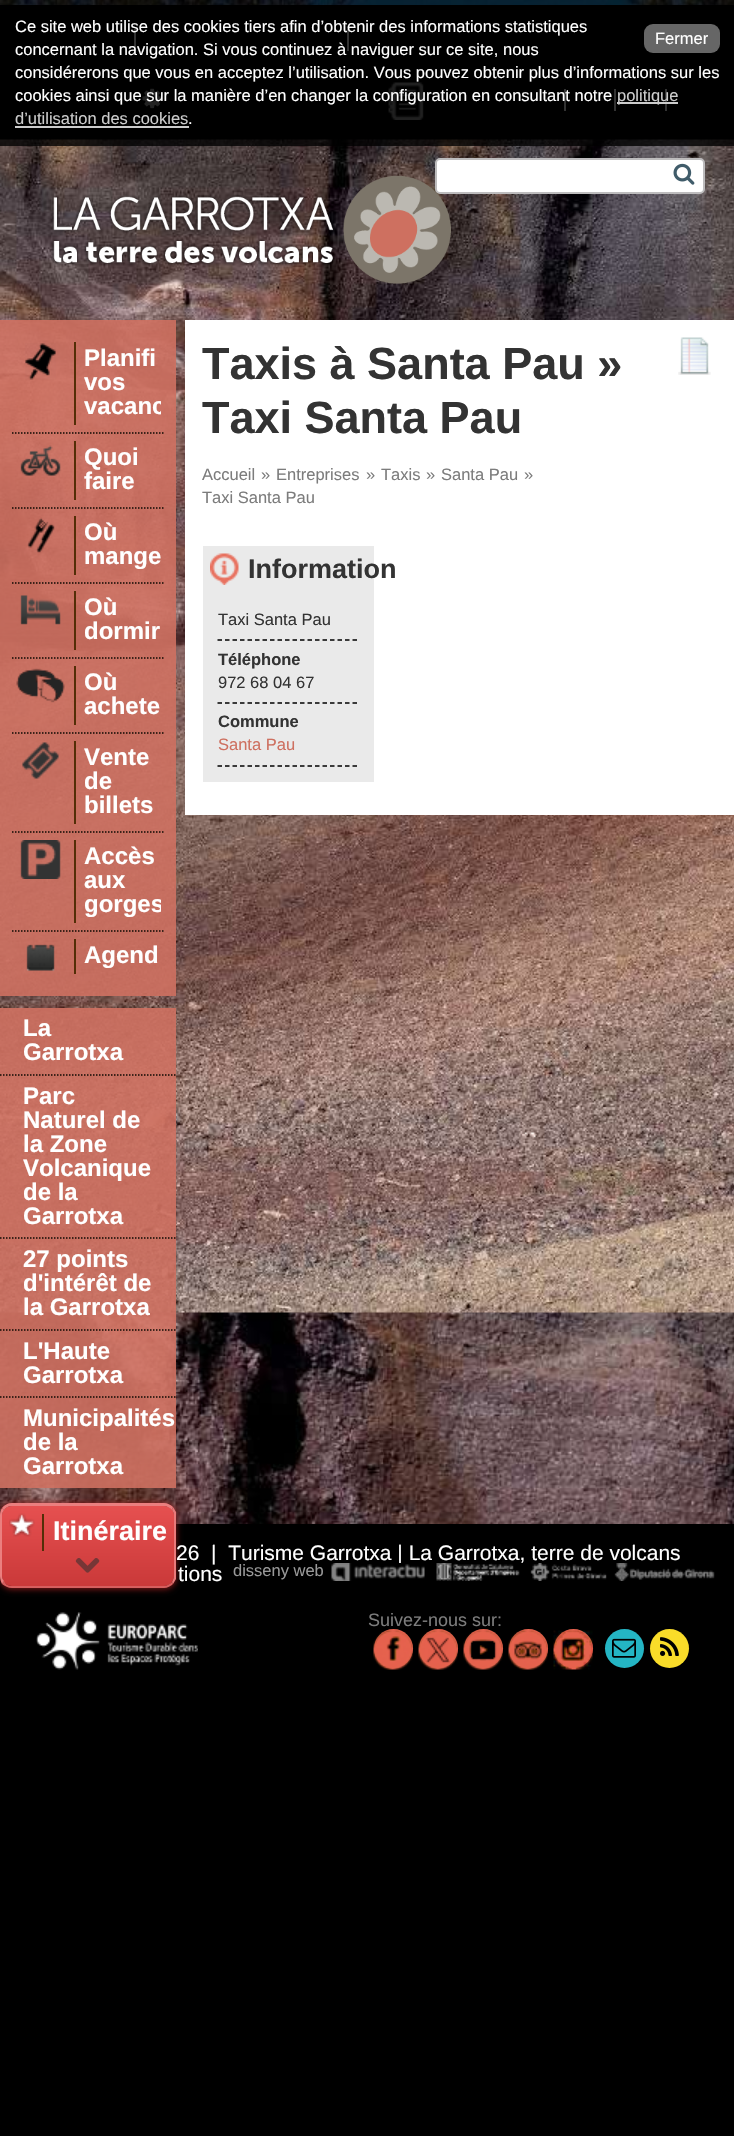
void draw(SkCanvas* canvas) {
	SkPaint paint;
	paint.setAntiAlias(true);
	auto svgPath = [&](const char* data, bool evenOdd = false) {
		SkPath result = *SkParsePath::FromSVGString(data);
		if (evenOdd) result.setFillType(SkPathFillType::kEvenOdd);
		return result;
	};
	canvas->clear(0xff000000);
	canvas->drawImageRect(SkImages::DeferredFromEncodedData(SkData::MakeFromFileName("img1.png")), SkRect::MakeXYWH(0, 0, 734, 1524), SkSamplingOptions());
	paint.setColor(0xff000000);
	canvas->drawRect(SkRect::MakeXYWH(0, 5, 734, 135), paint);
	paint.setColor(0xffffffff);
	canvas->drawRect(SkRect::MakeXYWH(134, 29, 2, 22), paint);
	canvas->drawRect(SkRect::MakeXYWH(347, 29, 2, 22), paint);
	canvas->drawImageRect(SkImages::DeferredFromEncodedData(SkData::MakeFromFileName("img2.png")), SkRect::MakeXYWH(142, 88, 20, 21), SkSamplingOptions());
	canvas->drawImageRect(SkImages::DeferredFromEncodedData(SkData::MakeFromFileName("img3.png")), SkRect::MakeXYWH(388, 82, 36, 38), SkSamplingOptions());
	canvas->drawRect(SkRect::MakeXYWH(564, 89, 2, 22), paint);
	canvas->drawRect(SkRect::MakeXYWH(614, 89, 2, 22), paint);
	canvas->drawRect(SkRect::MakeXYWH(665, 89, 2, 22), paint);
	canvas->drawImageRect(SkImages::DeferredFromEncodedData(SkData::MakeFromFileName("img4.png")), SkRect::MakeXYWH(0, 139, 734, 1174), SkSamplingOptions());
	paint.setColor(0xcc000000);
	canvas->drawRect(SkRect::MakeXYWH(0, 0, 734, 146), paint);
	SkFont f1(fontMgr->matchFamilyStyle("Liberation Sans", SkFontStyle::Normal()), 16.5);
	f1.setSubpixel(true);
	paint.setColor(0xffffffff);
	canvas->drawString("Ce site web utilise des cookies tiers afin d’obtenir des informations statistiques", 15, 32, f1, paint);
	paint.setColor(0xff666666);
	canvas->drawRoundRect(SkRect::MakeXYWH(644, 24, 76, 29), 9, 9, paint);
	paint.setColor(0xffffffff);
	canvas->drawString("Fermer", 655, 44, f1, paint);
	canvas->drawString("concernant la navigation. Si vous continuez à naviguer sur ce site, nous", 15, 55, f1, paint);
	canvas->drawString("considérerons que vous en acceptez l’utilisation. Vous pouvez obtenir plus d’informations sur les", 15, 78, f1, paint);
	canvas->drawString("cookies ainsi que sur la manière d’en changer la configuration en consultant notre", 15, 101, f1, paint);
	paint.setColor(0xffcccccc);
	canvas->drawRect(SkRect::MakeXYWH(617, 102, 61, 2), paint);
	canvas->drawString("politique", 617, 101, f1, paint);
	canvas->drawString("d’utilisation des cookies", 15, 124, f1, paint);
	canvas->drawRect(SkRect::MakeXYWH(15, 126, 174, 2), paint);
	paint.setColor(0xffffffff);
	canvas->drawString(".", 188, 124, f1, paint);
	canvas->drawImageRect(SkImages::DeferredFromEncodedData(SkData::MakeFromFileName("img5.png")), SkRect::MakeXYWH(50, 175, 401, 109), SkSamplingOptions());
	canvas->drawRoundRect(SkRect::MakeXYWH(436, 159, 268, 34), 4, 4, paint);
	paint.setStroke(true);
	paint.setStrokeWidth(2);
	paint.setColor(0xffbdbcbd);
	canvas->drawRoundRect(SkRect::MakeXYWH(436, 159, 268, 34), 4, 4, paint);
	canvas->drawImageRect(SkImages::DeferredFromEncodedData(SkData::MakeFromFileName("img6.png")), SkRect::MakeXYWH(673, 163, 22, 22), SkSamplingOptions());
	paint.setStroke(false);
	paint.setColor(0xe6ce7060);
	canvas->drawRect(SkRect::MakeXYWH(0, 320, 176, 676), paint);
	canvas->drawImageRect(SkImages::DeferredFromEncodedData(SkData::MakeFromFileName("img7.png")), SkRect::MakeXYWH(25, 343, 31, 37), SkSamplingOptions());
	paint.setColor(0xff532e07);
	canvas->drawRect(SkRect::MakeXYWH(74, 342, 2, 83), paint);
	SkFont f2(fontMgr->matchFamilyStyle("Liberation Sans", SkFontStyle::Bold()), 24);
	f2.setSubpixel(true);
	paint.setColor(0xffffffff);
	canvas->drawString("Planifi", 84, 366, f2, paint);
	canvas->drawString("vos", 84, 390, f2, paint);
	canvas->save();
	canvas->clipRect(SkRect::MakeXYWH(75, 342, 86, 83));
	canvas->drawString("vacanc", 84, 414, f2, paint);
	canvas->restore();
	paint.setStroke(true);
	paint.setStrokeWidth(1.5);
	paint.setColor(0xff0e0801);
	paint.setPathEffect(SkDashPathEffect::Make({{1.5f, 1.5f}}, 0));
	canvas->drawPath(svgPath("M12 433H163.5"), paint);
	paint.setPathEffect(nullptr);
	canvas->drawImageRect(SkImages::DeferredFromEncodedData(SkData::MakeFromFileName("img8.png")), SkRect::MakeXYWH(20, 445, 41, 31), SkSamplingOptions());
	paint.setStroke(false);
	paint.setColor(0xff532e07);
	canvas->drawRect(SkRect::MakeXYWH(74, 441, 2, 59), paint);
	paint.setColor(0xffffffff);
	canvas->drawString("Quoi", 84, 465, f2, paint);
	canvas->drawString("faire", 84, 489, f2, paint);
	paint.setStroke(true);
	paint.setColor(0xff0e0801);
	paint.setPathEffect(SkDashPathEffect::Make({{1.5f, 1.5f}}, 0));
	canvas->drawPath(svgPath("M12 508H163.5"), paint);
	paint.setPathEffect(nullptr);
	canvas->drawImageRect(SkImages::DeferredFromEncodedData(SkData::MakeFromFileName("img9.png")), SkRect::MakeXYWH(27, 517, 28, 36), SkSamplingOptions());
	paint.setStroke(false);
	paint.setColor(0xff532e07);
	canvas->drawRect(SkRect::MakeXYWH(74, 516, 2, 59), paint);
	paint.setColor(0xffffffff);
	canvas->drawString("Où", 84, 540, f2, paint);
	canvas->drawString("mange", 84, 564, f2, paint);
	paint.setStroke(true);
	paint.setColor(0xff0e0801);
	paint.setPathEffect(SkDashPathEffect::Make({{1.5f, 1.5f}}, 0));
	canvas->drawPath(svgPath("M12 583H163.5"), paint);
	paint.setPathEffect(nullptr);
	canvas->drawImageRect(SkImages::DeferredFromEncodedData(SkData::MakeFromFileName("img10.png")), SkRect::MakeXYWH(20, 595, 41, 30), SkSamplingOptions());
	paint.setStroke(false);
	paint.setColor(0xff532e07);
	canvas->drawRect(SkRect::MakeXYWH(74, 591, 2, 59), paint);
	paint.setColor(0xffffffff);
	canvas->drawString("Où", 84, 615, f2, paint);
	canvas->drawString("dormir", 84, 639, f2, paint);
	paint.setStroke(true);
	paint.setColor(0xff0e0801);
	paint.setPathEffect(SkDashPathEffect::Make({{1.5f, 1.5f}}, 0));
	canvas->drawPath(svgPath("M12 658H163.5"), paint);
	paint.setPathEffect(nullptr);
	canvas->drawImageRect(SkImages::DeferredFromEncodedData(SkData::MakeFromFileName("img11.png")), SkRect::MakeXYWH(16, 668, 49, 35), SkSamplingOptions());
	paint.setStroke(false);
	paint.setColor(0xff532e07);
	canvas->drawRect(SkRect::MakeXYWH(74, 666, 2, 59), paint);
	paint.setColor(0xffffffff);
	canvas->drawString("Où", 84, 690, f2, paint);
	canvas->drawString("achete", 84, 714, f2, paint);
	paint.setStroke(true);
	paint.setColor(0xff0e0801);
	paint.setPathEffect(SkDashPathEffect::Make({{1.5f, 1.5f}}, 0));
	canvas->drawPath(svgPath("M12 733H163.5"), paint);
	paint.setPathEffect(nullptr);
	canvas->drawImageRect(SkImages::DeferredFromEncodedData(SkData::MakeFromFileName("img12.png")), SkRect::MakeXYWH(22, 742, 37, 37), SkSamplingOptions());
	paint.setStroke(false);
	paint.setColor(0xff532e07);
	canvas->drawRect(SkRect::MakeXYWH(74, 741, 2, 83), paint);
	paint.setColor(0xffffffff);
	canvas->drawString("Vente", 84, 765, f2, paint);
	canvas->drawString("de", 84, 789, f2, paint);
	canvas->drawString("billets", 84, 813, f2, paint);
	paint.setStroke(true);
	paint.setColor(0xff0e0801);
	paint.setPathEffect(SkDashPathEffect::Make({{1.5f, 1.5f}}, 0));
	canvas->drawPath(svgPath("M12 832H163.5"), paint);
	paint.setPathEffect(nullptr);
	canvas->drawImageRect(SkImages::DeferredFromEncodedData(SkData::MakeFromFileName("img13.png")), SkRect::MakeXYWH(20, 840, 41, 39), SkSamplingOptions());
	paint.setStroke(false);
	paint.setColor(0xff532e07);
	canvas->drawRect(SkRect::MakeXYWH(74, 840, 2, 83), paint);
	paint.setColor(0xffffffff);
	canvas->drawString("Accès", 84, 864, f2, paint);
	canvas->drawString("aux", 84, 888, f2, paint);
	canvas->save();
	canvas->clipRect(SkRect::MakeXYWH(75, 840, 86, 83));
	canvas->drawString("gorges", 84, 912, f2, paint);
	canvas->restore();
	paint.setStroke(true);
	paint.setColor(0xff0e0801);
	paint.setPathEffect(SkDashPathEffect::Make({{1.5f, 1.5f}}, 0));
	canvas->drawPath(svgPath("M12 931H163.5"), paint);
	paint.setPathEffect(nullptr);
	canvas->drawImageRect(SkImages::DeferredFromEncodedData(SkData::MakeFromFileName("img14.png")), SkRect::MakeXYWH(26, 944, 29, 27), SkSamplingOptions());
	paint.setStroke(false);
	paint.setColor(0xff532e07);
	canvas->drawRect(SkRect::MakeXYWH(74, 939, 2, 35), paint);
	paint.setColor(0xffffffff);
	canvas->drawString("Agend", 84, 963, f2, paint);
	paint.setColor(0xe6ce7060);
	canvas->drawRect(SkRect::MakeXYWH(0, 1008, 176, 480), paint);
	paint.setColor(0xffffffff);
	canvas->drawString("La", 23, 1036, f2, paint);
	canvas->drawString("Garrotxa", 23, 1060, f2, paint);
	paint.setStroke(true);
	paint.setColor(0xff0e0801);
	paint.setPathEffect(SkDashPathEffect::Make({{1.5f, 1.5f}}, 0));
	canvas->drawPath(svgPath("M0 1075H175.5"), paint);
	paint.setPathEffect(nullptr);
	paint.setStroke(false);
	paint.setColor(0xffffffff);
	canvas->drawString("Parc", 23, 1104, f2, paint);
	canvas->drawString("Naturel de", 23, 1128, f2, paint);
	canvas->drawString("la Zone", 23, 1152, f2, paint);
	canvas->drawString("Volcanique", 23, 1176, f2, paint);
	canvas->drawString("de la", 23, 1200, f2, paint);
	canvas->drawString("Garrotxa", 23, 1224, f2, paint);
	paint.setStroke(true);
	paint.setColor(0xff0e0801);
	paint.setPathEffect(SkDashPathEffect::Make({{1.5f, 1.5f}}, 0));
	canvas->drawPath(svgPath("M0 1238H175.5"), paint);
	paint.setPathEffect(nullptr);
	paint.setStroke(false);
	paint.setColor(0xffffffff);
	canvas->drawString("27 points", 23, 1267, f2, paint);
	canvas->drawString("d'intérêt de", 23, 1291, f2, paint);
	canvas->drawString("la Garrotxa", 23, 1315, f2, paint);
	paint.setStroke(true);
	paint.setColor(0xff0e0801);
	paint.setPathEffect(SkDashPathEffect::Make({{1.5f, 1.5f}}, 0));
	canvas->drawPath(svgPath("M0 1330H175.5"), paint);
	paint.setPathEffect(nullptr);
	paint.setStroke(false);
	paint.setColor(0xffffffff);
	canvas->drawString("L'Haute", 23, 1359, f2, paint);
	canvas->drawString("Garrotxa", 23, 1383, f2, paint);
	paint.setStroke(true);
	paint.setColor(0xff0e0801);
	paint.setPathEffect(SkDashPathEffect::Make({{1.5f, 1.5f}}, 0));
	canvas->drawPath(svgPath("M0 1397H175.5"), paint);
	paint.setPathEffect(nullptr);
	paint.setStroke(false);
	paint.setColor(0xffffffff);
	canvas->drawString("Municipalités", 23, 1426, f2, paint);
	canvas->drawString("de la", 23, 1450, f2, paint);
	canvas->drawString("Garrotxa", 23, 1474, f2, paint);
	paint.setColor(0xff8a1919);
	paint.setMaskFilter(SkMaskFilter::MakeBlur(kNormal_SkBlurStyle, 3));
	canvas->drawRoundRect(SkRect::MakeXYWH(0, 1503, 176, 86), 12, 12, paint);
	paint.setMaskFilter(nullptr);
	{
		const SkColor colors[] = {0xffe65050, 0xffca3939};
		const float stops[] = {0, 1};
		const SkPoint ends[] = {{88, 1506}, {88, 1586}};
		paint.setShader(SkGradientShader::MakeLinear(ends, colors, stops, 2, SkTileMode::kClamp));
		paint.setAlpha(255);
	}
	canvas->drawPath(svgPath("M12 1506H164C169 1506 174 1510 174 1515V1576C174 1581 169 1586 164 1586H12C6 1586 2 1581 2 1576V1515C2 1510 6 1506 12 1506Z"), paint);
	paint.setShader(nullptr);
	paint.setColor(0xffea7f7f);
	canvas->drawPath(svgPath("M12 1503C8 1503 4 1505 2 1508L4 1510C5 1508 8 1506 12 1506H164C167 1506 170 1508 172 1510L173 1507C171 1505 167 1503 164 1503Z"), paint);
	paint.setColor(0xffe97a7a);
	canvas->drawPath(svgPath("M176 1579L173 1584L172 1582C173 1580 174 1578 174 1576V1515C174 1513 173 1511 172 1510L173 1507L176 1512Z"), paint);
	paint.setColor(0xffd65e5e);
	canvas->drawPath(svgPath("M173 1584C171 1586 167 1588 164 1588H12C8 1588 5 1586 2 1584L4 1581C5 1584 8 1586 12 1586H164C167 1586 170 1584 172 1582Z"), paint);
	paint.setColor(0xffeb7f7f);
	canvas->drawPath(svgPath("M0 1515V1576C0 1579 1 1582 2 1584L4 1581C3 1580 2 1578 2 1576V1515C2 1513 3 1511 4 1510L2 1508C1 1510 0 1512 0 1515Z"), paint);
	canvas->drawImageRect(SkImages::DeferredFromEncodedData(SkData::MakeFromFileName("img15.png")), SkRect::MakeXYWH(9, 1513, 26, 24), SkSamplingOptions());
	paint.setColor(0xff532e07);
	canvas->drawRect(SkRect::MakeXYWH(42, 1514, 2, 37), paint);
	SkFont f3(fontMgr->matchFamilyStyle("Liberation Sans", SkFontStyle::Bold()), 27);
	f3.setSubpixel(true);
	paint.setColor(0xffffffff);
	canvas->drawString("Itinéraire", 53, 1540, f3, paint);
	canvas->drawImageRect(SkImages::DeferredFromEncodedData(SkData::MakeFromFileName("img16.png")), SkRect::MakeXYWH(75, 1558, 25, 15), SkSamplingOptions());
	canvas->drawRect(SkRect::MakeXYWH(185, 320, 549, 495), paint);
	SkFont f4(fontMgr->matchFamilyStyle("Liberation Sans", SkFontStyle::Bold()), 45);
	f4.setSubpixel(true);
	paint.setColor(0xff333333);
	canvas->drawString("Taxis à Santa Pau »", 202, 379, f4, paint);
	canvas->drawString("Taxi Santa Pau", 202, 433, f4, paint);
	canvas->drawImageRect(SkImages::DeferredFromEncodedData(SkData::MakeFromFileName("img17.png")), SkRect::MakeXYWH(678, 337, 33, 38), SkSamplingOptions());
	paint.setColor(0xff7c7c7c);
	canvas->drawString("Accueil", 202, 480, f1, paint);
	canvas->drawString("»", 261, 480, f1, paint);
	canvas->drawString("Entreprises", 276, 480, f1, paint);
	canvas->drawString("»", 366, 480, f1, paint);
	canvas->drawString("Taxis", 381, 480, f1, paint);
	canvas->drawString("»", 426, 480, f1, paint);
	canvas->drawString("Santa Pau", 441, 480, f1, paint);
	canvas->drawString("»", 524, 480, f1, paint);
	canvas->drawString("Taxi Santa Pau", 202, 503, f1, paint);
	paint.setColor(0xffeaeaea);
	canvas->drawRect(SkRect::MakeXYWH(203, 546, 171, 236), paint);
	canvas->drawImageRect(SkImages::DeferredFromEncodedData(SkData::MakeFromFileName("img18.png")), SkRect::MakeXYWH(210, 553, 29, 32), SkSamplingOptions());
	paint.setColor(0xff333333);
	canvas->drawString("Information", 248, 578, f3, paint);
	paint.setStroke(true);
	paint.setColor(0xff000000);
	paint.setPathEffect(SkDashPathEffect::Make({{4.5f, 3}}, 0));
	canvas->drawPath(svgPath("M217.5 640H357"), paint);
	paint.setPathEffect(nullptr);
	paint.setStroke(false);
	paint.setColor(0xff333333);
	canvas->drawString("Taxi Santa Pau", 218, 625, f1, paint);
	paint.setStroke(true);
	paint.setColor(0xff000000);
	paint.setPathEffect(SkDashPathEffect::Make({{4.5f, 3}}, 0));
	canvas->drawPath(svgPath("M217.5 703H357"), paint);
	paint.setPathEffect(nullptr);
	SkFont f5(fontMgr->matchFamilyStyle("Liberation Sans", SkFontStyle::Bold()), 16.5);
	f5.setSubpixel(true);
	paint.setStroke(false);
	paint.setColor(0xff333333);
	canvas->drawString("Téléphone", 218, 665, f5, paint);
	canvas->drawString("972 68 04 67", 218, 688, f1, paint);
	paint.setStroke(true);
	paint.setColor(0xff000000);
	paint.setPathEffect(SkDashPathEffect::Make({{4.5f, 3}}, 0));
	canvas->drawPath(svgPath("M217.5 766H357"), paint);
	paint.setPathEffect(nullptr);
	paint.setStroke(false);
	paint.setColor(0xff333333);
	canvas->drawString("Commune", 218, 727, f5, paint);
	paint.setColor(0xffce7060);
	canvas->drawString("Santa Pau", 218, 750, f1, paint);
	SkFont f6(fontMgr->matchFamilyStyle("Liberation Sans", SkFontStyle::Normal()), 21);
	f6.setSubpixel(true);
	paint.setColor(0xffffffff);
	canvas->drawString("26  |  Turisme Garrotxa | La Garrotxa, terre de volcans", 176, 1560, f6, paint);
	canvas->drawString("tions", 178, 1581, f6, paint);
	paint.setColor(0xff999999);
	canvas->drawString("disseny web", 233, 1576, f1, paint);
	canvas->drawImageRect(SkImages::DeferredFromEncodedData(SkData::MakeFromFileName("img19.png")), SkRect::MakeXYWH(331, 1563, 384, 18), SkSamplingOptions());
	canvas->drawImageRect(SkImages::DeferredFromEncodedData(SkData::MakeFromFileName("img20.png")), SkRect::MakeXYWH(36, 1612, 162, 58), SkSamplingOptions());
	SkFont f7(fontMgr->matchFamilyStyle("Liberation Sans", SkFontStyle::Normal()), 18);
	f7.setSubpixel(true);
	paint.setColor(0xff7c7c7c);
	canvas->drawString("Suivez-nous sur:", 368, 1626, f7, paint);
	paint.setColor(0xffe6624e);
	canvas->drawCircle(393.5, 1648.5, 19.5, paint);
	canvas->drawImageRect(SkImages::DeferredFromEncodedData(SkData::MakeFromFileName("img21.png")), SkRect::MakeXYWH(373, 1630, 40, 40), SkSamplingOptions());
	canvas->drawCircle(438.5, 1648.5, 19.5, paint);
	canvas->drawImageRect(SkImages::DeferredFromEncodedData(SkData::MakeFromFileName("img22.png")), SkRect::MakeXYWH(418, 1630, 40, 40), SkSamplingOptions());
	canvas->drawCircle(483.5, 1648.5, 19.5, paint);
	canvas->drawImageRect(SkImages::DeferredFromEncodedData(SkData::MakeFromFileName("img23.png")), SkRect::MakeXYWH(463, 1630, 40, 40), SkSamplingOptions());
	canvas->drawCircle(528.5, 1648.5, 19.5, paint);
	canvas->drawImageRect(SkImages::DeferredFromEncodedData(SkData::MakeFromFileName("img24.png")), SkRect::MakeXYWH(508, 1630, 40, 40), SkSamplingOptions());
	canvas->drawCircle(573.5, 1648.5, 19.5, paint);
	canvas->drawImageRect(SkImages::DeferredFromEncodedData(SkData::MakeFromFileName("img25.png")), SkRect::MakeXYWH(553, 1630, 40, 40), SkSamplingOptions());
	paint.setColor(0xff24b5c4);
	canvas->drawCircle(624.5, 1648.5, 19.5, paint);
	canvas->drawImageRect(SkImages::DeferredFromEncodedData(SkData::MakeFromFileName("img26.png")), SkRect::MakeXYWH(612, 1638, 24, 20), SkSamplingOptions());
	paint.setColor(0xfff9dc29);
	canvas->drawCircle(669.5, 1648.5, 19.5, paint);
	canvas->drawImageRect(SkImages::DeferredFromEncodedData(SkData::MakeFromFileName("img27.png")), SkRect::MakeXYWH(660, 1637, 19, 19), SkSamplingOptions());
}
